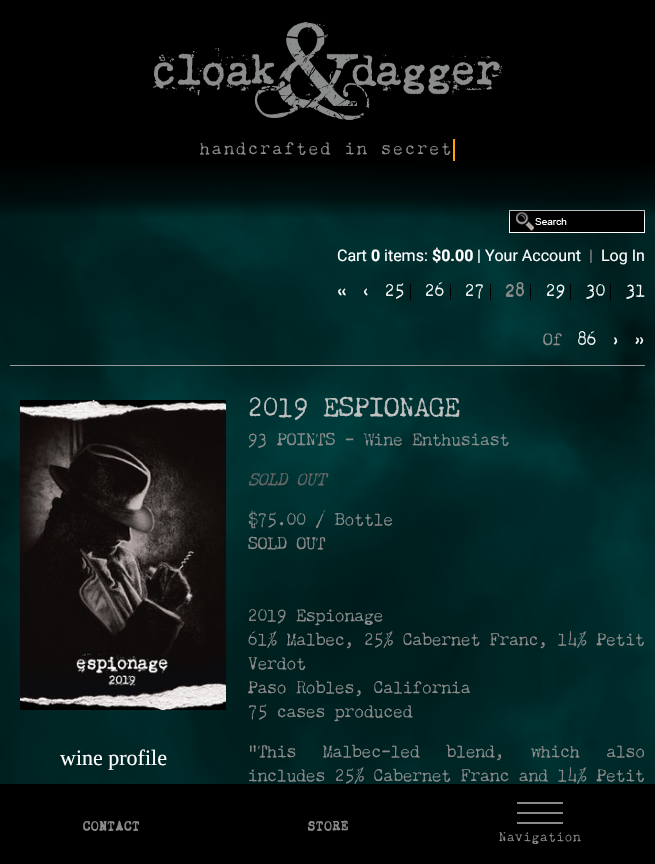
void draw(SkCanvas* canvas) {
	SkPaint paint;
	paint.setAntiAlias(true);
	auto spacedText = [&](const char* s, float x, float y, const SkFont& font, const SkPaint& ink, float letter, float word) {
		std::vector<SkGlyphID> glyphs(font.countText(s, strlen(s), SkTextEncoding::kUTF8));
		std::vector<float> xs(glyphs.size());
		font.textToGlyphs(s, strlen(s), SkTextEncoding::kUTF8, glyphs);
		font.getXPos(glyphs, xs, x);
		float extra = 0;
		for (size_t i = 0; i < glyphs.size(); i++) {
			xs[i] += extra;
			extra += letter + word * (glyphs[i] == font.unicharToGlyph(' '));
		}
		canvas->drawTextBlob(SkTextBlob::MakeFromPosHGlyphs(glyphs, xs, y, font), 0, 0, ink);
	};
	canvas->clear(0xffffffff);
	paint.setColor(0xff000000);
	canvas->drawRect(SkRect::MakeXYWH(0, 0, 655, 161), paint);
	canvas->drawImageRect(SkImages::DeferredFromEncodedData(SkData::MakeFromFileName("img1.png")), SkRect::MakeXYWH(153, 21, 350, 99), SkSamplingOptions());
	paint.setColor(0xffffa500);
	canvas->drawRect(SkRect::MakeXYWH(453, 139, 2, 22), paint);
	SkFont f1(fontMgr->matchFamilyStyle("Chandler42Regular", SkFontStyle::Normal()), 16);
	f1.setSubpixel(true);
	paint.setColor(0xff8a8a8a);
	spacedText("handcrafted in secret", 200, 154, f1, paint, 2.4, 0);
	canvas->drawImageRect(SkImages::DeferredFromEncodedData(SkData::MakeFromFileName("img2.png")), SkRect::MakeXYWH(0, 162, 655, 622), SkSamplingOptions());
	paint.setColor(0xff000000);
	canvas->drawRect(SkRect::MakeXYWH(510, 211, 134, 21), paint);
	canvas->drawImageRect(SkImages::DeferredFromEncodedData(SkData::MakeFromFileName("img3.png")), SkRect::MakeXYWH(516, 212, 51, 19), SkSamplingOptions());
	paint.setStroke(true);
	paint.setStrokeWidth(1);
	paint.setColor(0xffffffff);
	canvas->drawRect(SkRect::MakeXYWH(509.5, 210.5, 135, 22), paint);
	paint.setStroke(false);
	{
		const SkColor colors[] = {0xff000000, 0x99000000, 0x00000000};
		const float stops[] = {0, 0.6, 0.9};
		const SkPoint ends[] = {{328, 161}, {328, 225}};
		paint.setShader(SkGradientShader::MakeLinear(ends, colors, stops, 3, SkTileMode::kClamp));
		paint.setAlpha(255);
	}
	canvas->drawRect(SkRect::MakeXYWH(0, 161, 655, 57), paint);
	SkFont f2(fontMgr->matchFamilyStyle("Roboto", SkFontStyle::Normal()), 16);
	f2.setSubpixel(true);
	paint.setShader(nullptr);
	paint.setColor(0xffffffff);
	canvas->drawString("Cart", 337, 261, f2, paint);
	SkFont f3(fontMgr->matchFamilyStyle("Roboto", SkFontStyle::Bold()), 16);
	f3.setSubpixel(true);
	canvas->drawString("0", 371, 261, f3, paint);
	canvas->drawString("items:", 384, 261, f2, paint);
	canvas->drawString("$0.00", 432, 261, f3, paint);
	canvas->drawString("| Your Account", 477, 261, f2, paint);
	paint.setColor(0xff8a8a8a);
	canvas->drawString("|", 589, 261, f2, paint);
	paint.setColor(0xffffffff);
	canvas->drawString("Log In", 601, 261, f2, paint);
	paint.setColor(0xff999999);
	canvas->drawRect(SkRect::MakeXYWH(10, 365, 635, 1), paint);
	paint.setColor(0xffffffff);
	canvas->drawString("«", 337, 296, f1, paint);
	canvas->drawString("‹", 361, 296, f1, paint);
	canvas->drawString("25", 385, 296, f1, paint);
	paint.setColor(0xff000000);
	canvas->drawRect(SkRect::MakeXYWH(410, 284, 1, 16), paint);
	paint.setColor(0xffffffff);
	canvas->drawString("26", 425, 296, f1, paint);
	paint.setColor(0xff000000);
	canvas->drawRect(SkRect::MakeXYWH(450, 284, 1, 16), paint);
	paint.setColor(0xffffffff);
	canvas->drawString("27", 465, 296, f1, paint);
	paint.setColor(0xff000000);
	canvas->drawRect(SkRect::MakeXYWH(490, 284, 1, 16), paint);
	SkFont f4(fontMgr->matchFamilyStyle("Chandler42", SkFontStyle::Normal()), 16);
	f4.setSubpixel(true);
	paint.setColor(0xff8a8a8a);
	canvas->drawString("28", 505, 296, f4, paint);
	paint.setColor(0xff000000);
	canvas->drawRect(SkRect::MakeXYWH(530, 284, 1, 16), paint);
	paint.setColor(0xffffffff);
	canvas->drawString("29", 546, 296, f1, paint);
	paint.setColor(0xff000000);
	canvas->drawRect(SkRect::MakeXYWH(570, 284, 1, 16), paint);
	paint.setColor(0xffffffff);
	canvas->drawString("30", 586, 296, f1, paint);
	paint.setColor(0xff000000);
	canvas->drawRect(SkRect::MakeXYWH(610, 284, 1, 16), paint);
	paint.setColor(0xffffffff);
	canvas->drawString("31", 626, 296, f1, paint);
	paint.setColor(0xff8a8a8a);
	canvas->drawString("Of", 543, 345, f1, paint);
	paint.setColor(0xffffffff);
	canvas->drawString("86", 577, 345, f1, paint);
	canvas->drawString("›", 611, 345, f1, paint);
	canvas->drawString("»", 635, 345, f1, paint);
	canvas->drawImageRect(SkImages::DeferredFromEncodedData(SkData::MakeFromFileName("img4.png")), SkRect::MakeXYWH(20, 400, 206, 310), SkSamplingOptions());
	SkFont f5(fontMgr->matchFamilyStyle("Liberation Serif", SkFontStyle::Normal()), 22);
	f5.setSubpixel(true);
	canvas->drawString("wine profile", 60, 765, f5, paint);
	SkFont f6(fontMgr->matchFamilyStyle("Chandler42Regular", SkFontStyle::Normal()), 25);
	f6.setSubpixel(true);
	paint.setColor(0xffc0c0c0);
	canvas->drawString("2019 ESPIONAGE", 248, 416, f6, paint);
	paint.setColor(0xff8a8a8a);
	canvas->drawString("93 POINTS - Wine Enthusiast", 248, 445, f1, paint);
	SkFont f7(fontMgr->matchFamilyStyle("Chandler42", SkFontStyle(500, SkFontStyle::kNormal_Width, SkFontStyle::kItalic_Slant)), 16);
	f7.setSubpixel(true);
	paint.setColor(0xff666666);
	canvas->drawString("SOLD OUT", 248, 485, f7, paint);
	paint.setColor(0xff8a8a8a);
	canvas->drawString("$75.00 / Bottle", 248, 525, f1, paint);
	canvas->drawString("SOLD OUT", 248, 549, f1, paint);
	canvas->drawString("2019 Espionage", 248, 621, f1, paint);
	canvas->drawString("61% Malbec, 25% Cabernet Franc, 14% Petit", 248, 645, f1, paint);
	canvas->drawString("Verdot", 248, 669, f1, paint);
	canvas->drawString("Paso Robles, California", 248, 693, f1, paint);
	canvas->drawString("75 cases produced", 248, 717, f1, paint);
	spacedText("\"This Malbec-led blend, which also", 248, 757, f1, paint, 0, 17);
	canvas->drawString("includes 25% Cabernet Franc and 14% Petit", 248, 781, f1, paint);
	paint.setColor(0xff000000);
	canvas->drawRect(SkRect::MakeXYWH(0, 784, 655, 80), paint);
	SkFont f8(fontMgr->matchFamilyStyle("Chandler42", SkFontStyle::Normal()), 12);
	f8.setSubpixel(true);
	paint.setColor(0xff8a8a8a);
	spacedText("CONTACT", 83, 830, f8, paint, 1, 0);
	spacedText("STORE", 308, 830, f8, paint, 1, 0);
	canvas->drawRect(SkRect::MakeXYWH(517, 802, 46, 2), paint);
	canvas->drawRect(SkRect::MakeXYWH(517, 812, 46, 2), paint);
	canvas->drawRect(SkRect::MakeXYWH(517, 822, 46, 2), paint);
	SkFont f9(fontMgr->matchFamilyStyle("Chandler42Regular", SkFontStyle::Normal()), 12);
	f9.setSubpixel(true);
	spacedText("Navigation", 499, 841, f9, paint, 1, 0);
}
